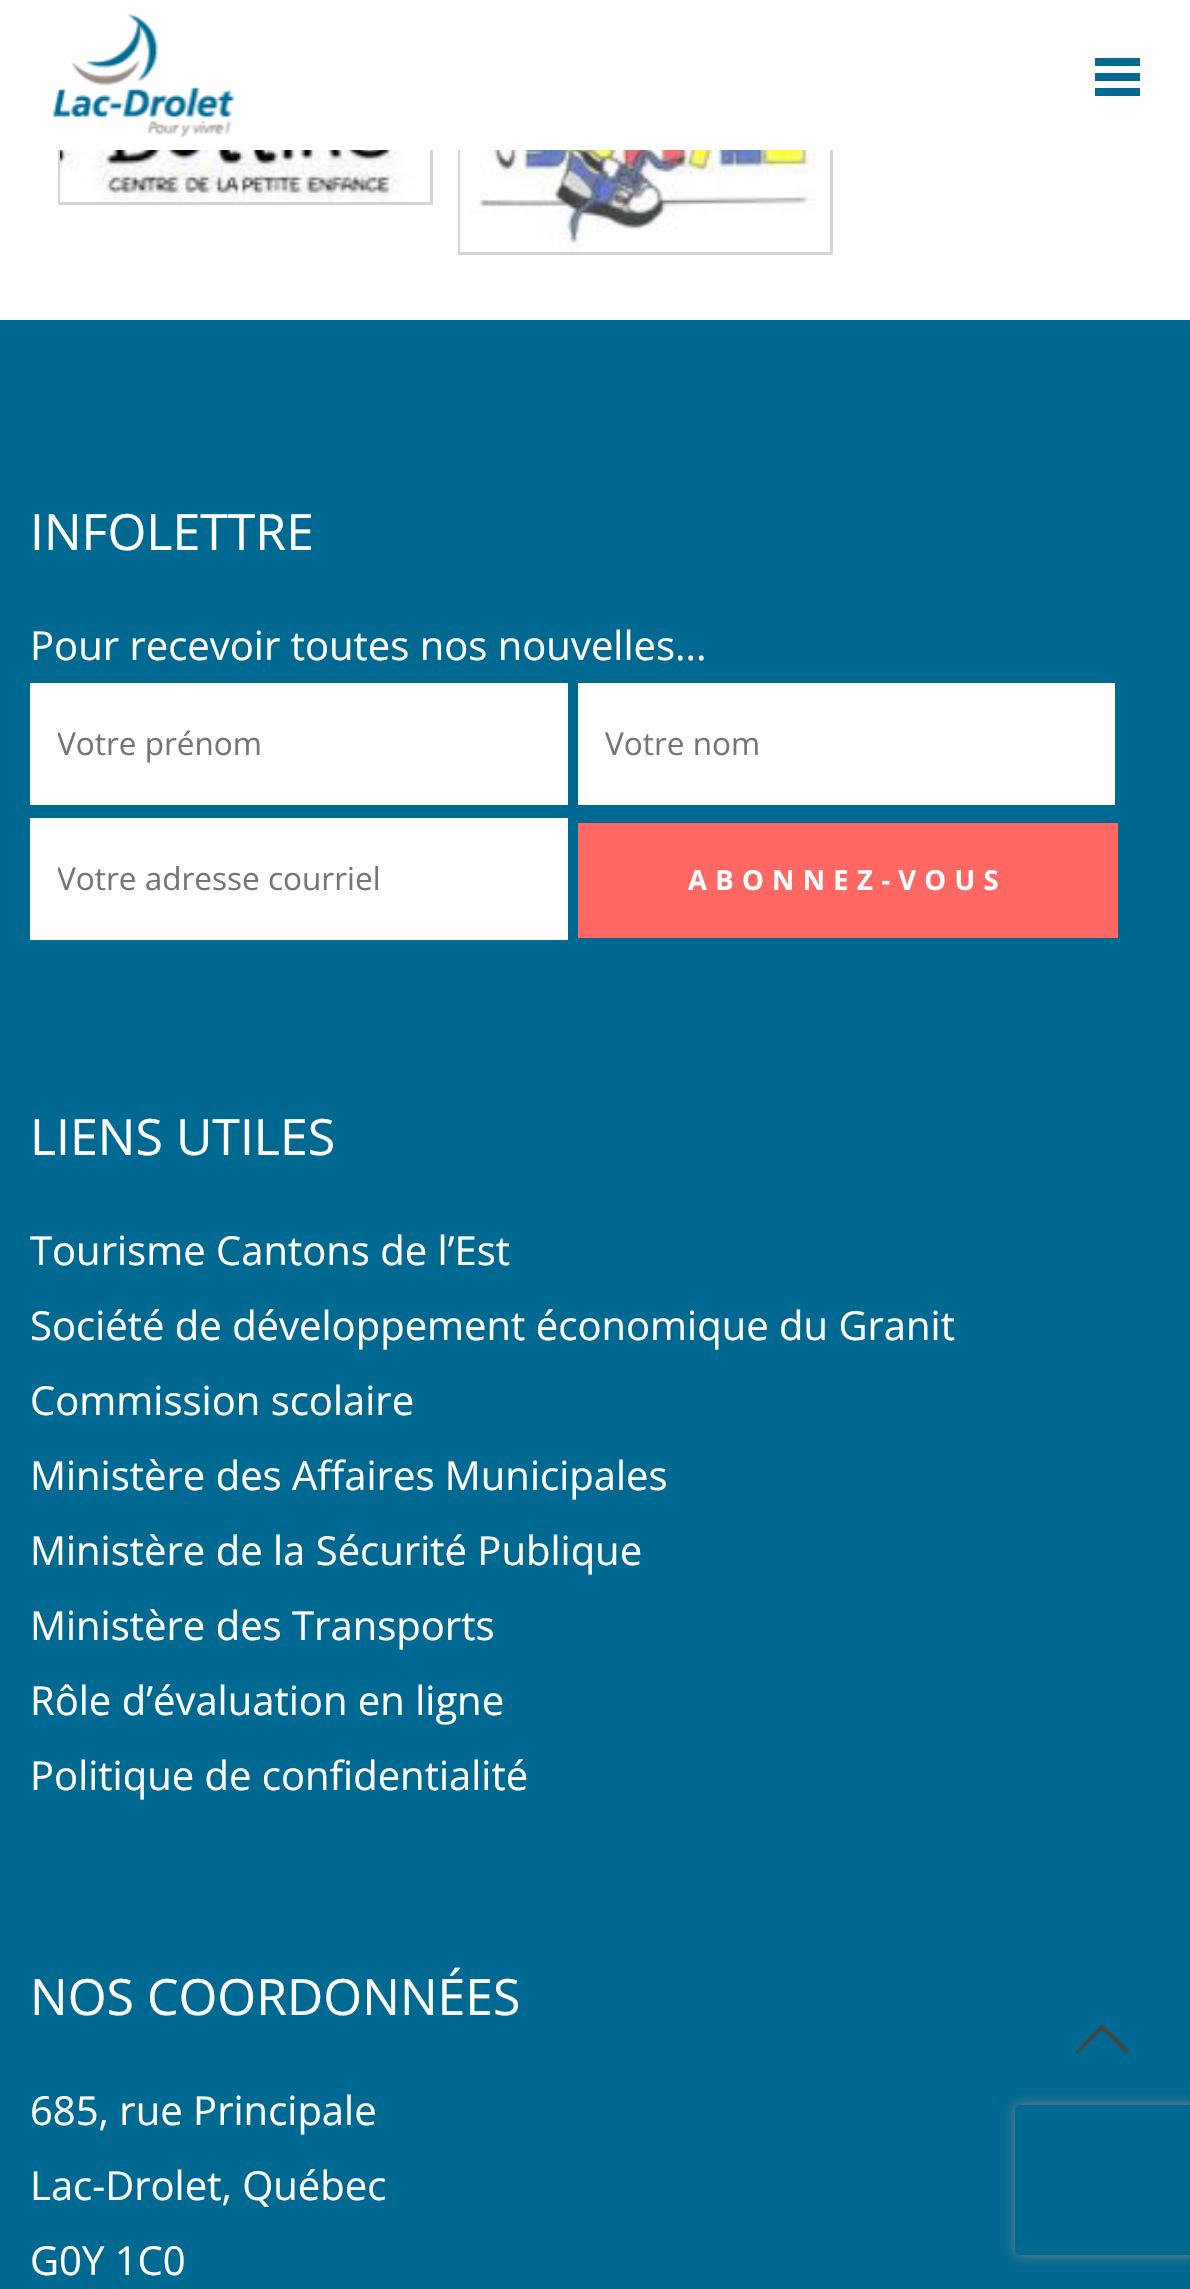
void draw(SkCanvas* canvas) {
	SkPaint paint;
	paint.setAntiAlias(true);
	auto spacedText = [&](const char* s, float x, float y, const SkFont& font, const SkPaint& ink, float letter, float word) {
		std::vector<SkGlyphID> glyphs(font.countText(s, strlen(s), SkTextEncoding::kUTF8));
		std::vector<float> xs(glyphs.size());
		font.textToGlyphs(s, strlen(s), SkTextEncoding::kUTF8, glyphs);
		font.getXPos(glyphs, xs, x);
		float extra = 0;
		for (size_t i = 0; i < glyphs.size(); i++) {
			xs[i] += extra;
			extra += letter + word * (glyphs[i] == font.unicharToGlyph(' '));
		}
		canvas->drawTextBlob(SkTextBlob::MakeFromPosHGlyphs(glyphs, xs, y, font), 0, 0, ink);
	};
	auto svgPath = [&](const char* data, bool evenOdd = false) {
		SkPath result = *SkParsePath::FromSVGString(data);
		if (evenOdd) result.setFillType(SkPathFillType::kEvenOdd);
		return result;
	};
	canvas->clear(0xffffffff);
	paint.setStroke(true);
	paint.setStrokeWidth(3);
	paint.setColor(0xffd4d4d4);
	canvas->drawRect(SkRect::MakeXYWH(59.5, -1.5, 372, 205), paint);
	canvas->drawImageRect(SkImages::DeferredFromEncodedData(SkData::MakeFromFileName("img1.png")), SkRect::MakeXYWH(60, 150, 370, 52), SkSamplingOptions());
	canvas->drawRect(SkRect::MakeXYWH(459.5, -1.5, 372, 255), paint);
	canvas->drawImageRect(SkImages::DeferredFromEncodedData(SkData::MakeFromFileName("img2.png")), SkRect::MakeXYWH(460, 150, 356, 102), SkSamplingOptions());
	paint.setStroke(false);
	paint.setColor(0xffffffff);
	canvas->drawRect(SkRect::MakeXYWH(58, 0, 775, 150), paint);
	canvas->drawImageRect(SkImages::DeferredFromEncodedData(SkData::MakeFromFileName("img3.png")), SkRect::MakeXYWH(53, 13, 183, 125), SkSamplingOptions());
	paint.setColor(0xff026991);
	canvas->drawRect(SkRect::MakeXYWH(1095, 58, 45, 8), paint);
	canvas->drawRect(SkRect::MakeXYWH(1095, 73, 45, 8), paint);
	canvas->drawRect(SkRect::MakeXYWH(1095, 88, 45, 8), paint);
	paint.setColor(0xff006991);
	canvas->drawRect(SkRect::MakeXYWH(0, 320, 1190, 1969), paint);
	SkFont f1(fontMgr->matchFamilyStyle("Open Sans", SkFontStyle::Normal()), 50);
	f1.setSubpixel(true);
	paint.setColor(0xffffffff);
	canvas->drawString("INFOLETTRE", 30, 550, f1, paint);
	SkFont f2(fontMgr->matchFamilyStyle("Open Sans", SkFontStyle::Normal()), 40);
	f2.setSubpixel(true);
	canvas->drawString("Pour recevoir toutes nos nouvelles...", 30, 660, f2, paint);
	canvas->drawRect(SkRect::MakeXYWH(30, 683, 538, 122), paint);
	canvas->save();
	canvas->clipRect(SkRect::MakeXYWH(58, 723, 482, 42));
	SkFont f3(fontMgr->matchFamilyStyle("Open Sans", SkFontStyle::Normal()), 31.5);
	f3.setSubpixel(true);
	paint.setColor(0xff757575);
	canvas->drawString("Votre prénom", 57, 755, f3, paint);
	canvas->restore();
	paint.setColor(0xffffffff);
	canvas->drawRect(SkRect::MakeXYWH(578, 683, 537, 122), paint);
	paint.setColor(0xff757575);
	canvas->drawString("Votre nom", 605, 755, f3, paint);
	paint.setColor(0xffffffff);
	canvas->drawRect(SkRect::MakeXYWH(30, 818, 538, 122), paint);
	canvas->save();
	canvas->clipRect(SkRect::MakeXYWH(58, 858, 482, 42));
	paint.setColor(0xff757575);
	canvas->drawString("Votre adresse courriel", 57, 890, f3, paint);
	canvas->restore();
	paint.setColor(0xffff6863);
	canvas->drawRect(SkRect::MakeXYWH(578, 823, 540, 115), paint);
	SkFont f4(fontMgr->matchFamilyStyle("Open Sans", SkFontStyle::Bold()), 27.5);
	f4.setSubpixel(true);
	paint.setColor(0xffffffff);
	spacedText("ABONNEZ-VOUS", 688, 890, f4, paint, 8.25, 0);
	canvas->drawString("LIENS UTILES", 30, 1155, f1, paint);
	canvas->drawString("Tourisme Cantons de l’Est", 30, 1265, f2, paint);
	canvas->drawString("Société de développement économique du Granit", 30, 1340, f2, paint);
	canvas->drawString("Commission scolaire", 30, 1415, f2, paint);
	canvas->drawString("Ministère des Affaires Municipales", 30, 1490, f2, paint);
	canvas->drawString("Ministère de la Sécurité Publique", 30, 1565, f2, paint);
	canvas->drawString("Ministère des Transports", 30, 1640, f2, paint);
	canvas->drawString("Rôle d’évaluation en ligne", 30, 1715, f2, paint);
	canvas->drawString("Politique de confidentialité", 30, 1790, f2, paint);
	canvas->drawString("NOS COORDONNÉES", 30, 2015, f1, paint);
	canvas->drawString("685, rue Principale", 30, 2125, f2, paint);
	canvas->drawString("Lac-Drolet, Québec", 30, 2200, f2, paint);
	canvas->drawString("G0Y 1C0", 30, 2275, f2, paint);
	paint.setColor(0xff454545);
	canvas->drawPath(svgPath("M1129 2051C1129 2053 1127 2054 1126 2053L1102 2030L1078 2053C1077 2053 1076 2052 1076 2051L1102 2024C1106 2028 1129 2049 1129 2051Z"), paint);
	canvas->save();
	canvas->clipPath(svgPath("M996 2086H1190V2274H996ZM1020 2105H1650C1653 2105 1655 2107 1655 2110V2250C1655 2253 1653 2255 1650 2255H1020C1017 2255 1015 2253 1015 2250V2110C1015 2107 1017 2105 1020 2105Z", true), true);
	paint.setColor(0xff808080);
	paint.setMaskFilter(SkMaskFilter::MakeBlur(kNormal_SkBlurStyle, 6));
	canvas->drawRoundRect(SkRect::MakeXYWH(1015, 2105, 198, 150), 5, 5, paint);
	paint.setMaskFilter(nullptr);
	canvas->restore();
}
